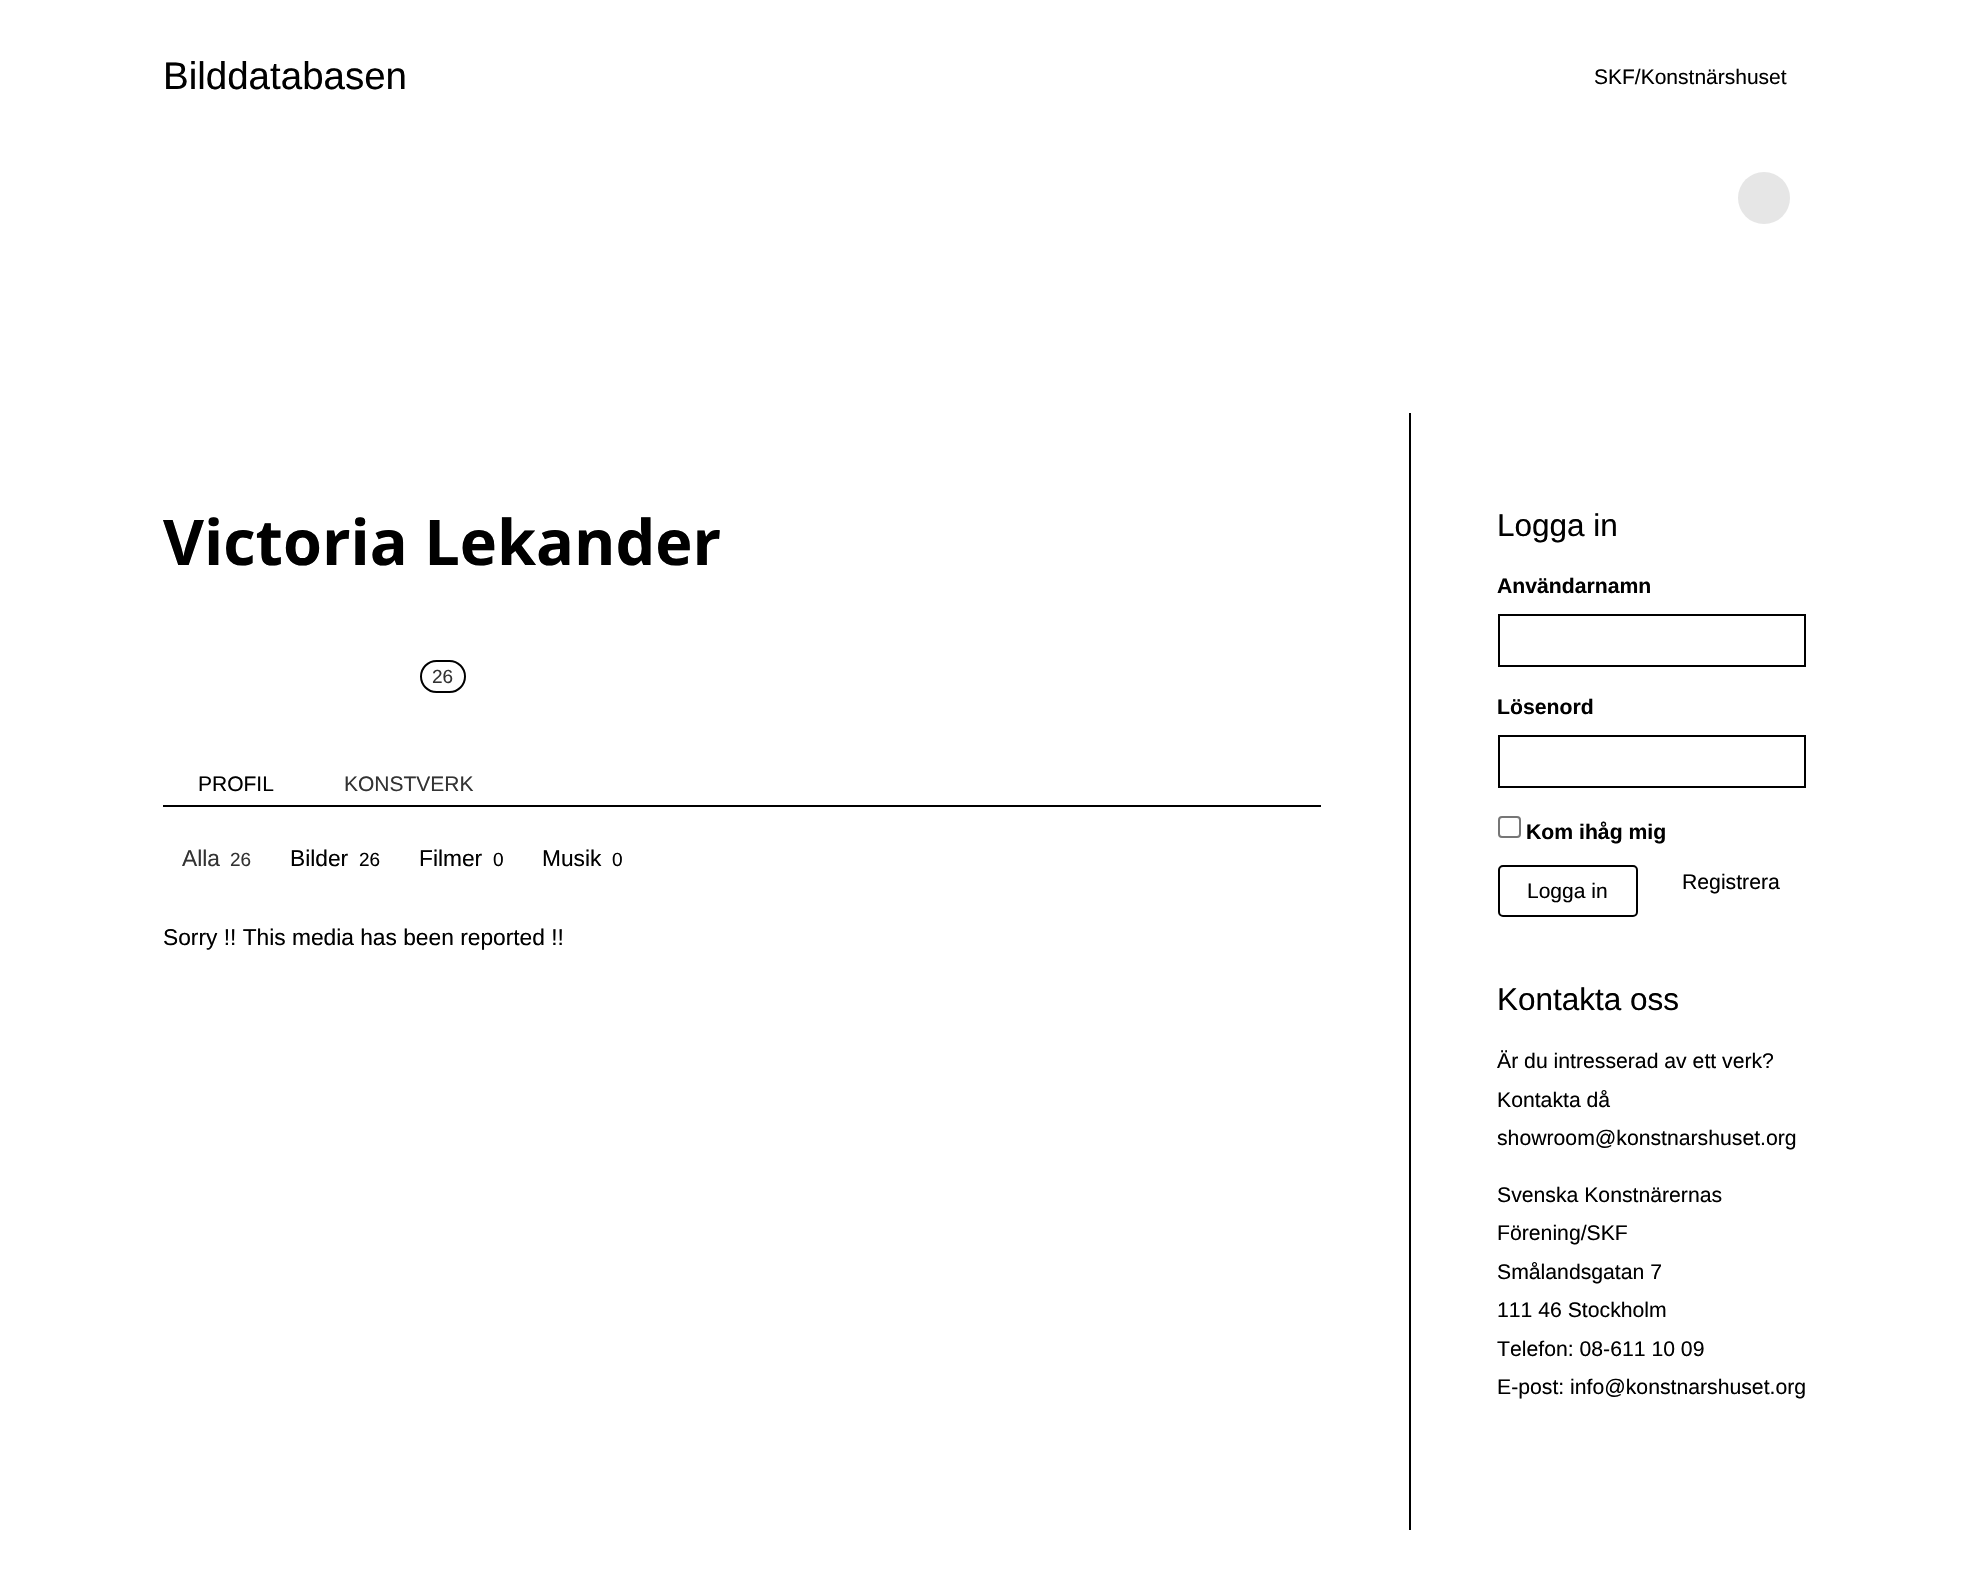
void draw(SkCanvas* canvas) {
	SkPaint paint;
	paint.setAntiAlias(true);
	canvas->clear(0xffffffff);
	SkFont f1(fontMgr->matchFamilyStyle("Liberation Sans", SkFontStyle::Normal()), 38.5);
	f1.setSubpixel(true);
	paint.setColor(0xff000000);
	canvas->drawString("Bilddatabasen", 163, 89, f1, paint);
	SkFont f2(fontMgr->matchFamilyStyle("Liberation Sans", SkFontStyle::Normal()), 21);
	f2.setSubpixel(true);
	canvas->drawString("SKF/Konstnärshuset", 1594, 84, f2, paint);
	paint.setColor(0xffe6e6e6);
	canvas->drawCircle(1764, 198, 26, paint);
	paint.setColor(0xff000000);
	canvas->drawRect(SkRect::MakeXYWH(1409, 413, 2, 1117), paint);
	SkFont f3(fontMgr->matchFamilyStyle("Open Sans", SkFontStyle::Bold()), 63);
	f3.setSubpixel(true);
	canvas->drawString("Victoria Lekander", 163, 565, f3, paint);
	canvas->drawRect(SkRect::MakeXYWH(163, 805, 1158, 2), paint);
	canvas->drawString("PROFIL", 198, 791, f2, paint);
	paint.setStroke(true);
	paint.setStrokeWidth(2);
	canvas->drawRoundRect(SkRect::MakeXYWH(421, 661, 44, 31), 15.5, 15.5, paint);
	SkFont f4(fontMgr->matchFamilyStyle("Liberation Sans", SkFontStyle::Normal()), 19);
	f4.setSubpixel(true);
	paint.setStroke(false);
	paint.setColor(0xff333333);
	canvas->drawString("26", 432, 683, f4, paint);
	canvas->drawString("KONSTVERK", 344, 791, f2, paint);
	SkFont f5(fontMgr->matchFamilyStyle("Liberation Sans", SkFontStyle::Normal()), 22.75);
	f5.setSubpixel(true);
	canvas->drawString("Alla", 182, 866, f5, paint);
	canvas->drawString("26", 230, 866, f4, paint);
	paint.setColor(0xff000000);
	canvas->drawString("Bilder", 290, 866, f5, paint);
	canvas->drawString("26", 359, 866, f4, paint);
	canvas->drawString("Filmer", 419, 866, f5, paint);
	canvas->drawString("0", 493, 866, f4, paint);
	canvas->drawString("Musik", 542, 866, f5, paint);
	canvas->drawString("0", 612, 866, f4, paint);
	canvas->drawString("Sorry !! This media has been reported !!", 163, 945, f5, paint);
	SkFont f6(fontMgr->matchFamilyStyle("Liberation Sans", SkFontStyle::Normal()), 31.5);
	f6.setSubpixel(true);
	canvas->drawString("Logga in", 1497, 536, f6, paint);
	SkFont f7(fontMgr->matchFamilyStyle("Liberation Sans", SkFontStyle::Bold()), 21.2);
	f7.setSubpixel(true);
	canvas->drawString("Användarnamn", 1497, 593, f7, paint);
	paint.setStroke(true);
	canvas->drawRect(SkRect::MakeXYWH(1499, 615, 306, 51), paint);
	paint.setStroke(false);
	canvas->drawString("Lösenord", 1497, 714, f7, paint);
	paint.setStroke(true);
	canvas->drawRect(SkRect::MakeXYWH(1499, 736, 306, 51), paint);
	paint.setColor(0xff767676);
	canvas->drawRoundRect(SkRect::MakeXYWH(1499, 817, 21, 20), 3, 3, paint);
	paint.setStroke(false);
	paint.setColor(0xff000000);
	canvas->drawString("Kom ihåg mig", 1526, 839, f7, paint);
	paint.setStroke(true);
	canvas->drawRoundRect(SkRect::MakeXYWH(1499, 866, 138, 50), 4, 4, paint);
	paint.setStroke(false);
	canvas->drawString("Logga in", 1527, 898, f2, paint);
	SkFont f8(fontMgr->matchFamilyStyle("Liberation Sans", SkFontStyle::Normal()), 21.2);
	f8.setSubpixel(true);
	canvas->drawString("Registrera", 1682, 889, f8, paint);
	canvas->drawString("Kontakta oss", 1497, 1010, f6, paint);
	canvas->drawString("Är du intresserad av ett verk?", 1497, 1068, f8, paint);
	canvas->drawString("Kontakta då", 1497, 1107, f8, paint);
	canvas->drawString("showroom@konstnarshuset.org", 1497, 1145, f8, paint);
	canvas->drawString("Svenska Konstnärernas", 1497, 1202, f8, paint);
	canvas->drawString("Förening/SKF", 1497, 1240, f8, paint);
	canvas->drawString("Smålandsgatan 7", 1497, 1279, f8, paint);
	canvas->drawString("111 46 Stockholm", 1497, 1317, f8, paint);
	canvas->drawString("Telefon: 08-611 10 09", 1497, 1356, f8, paint);
	canvas->drawString("E-post: info@konstnarshuset.org", 1497, 1394, f8, paint);
}
